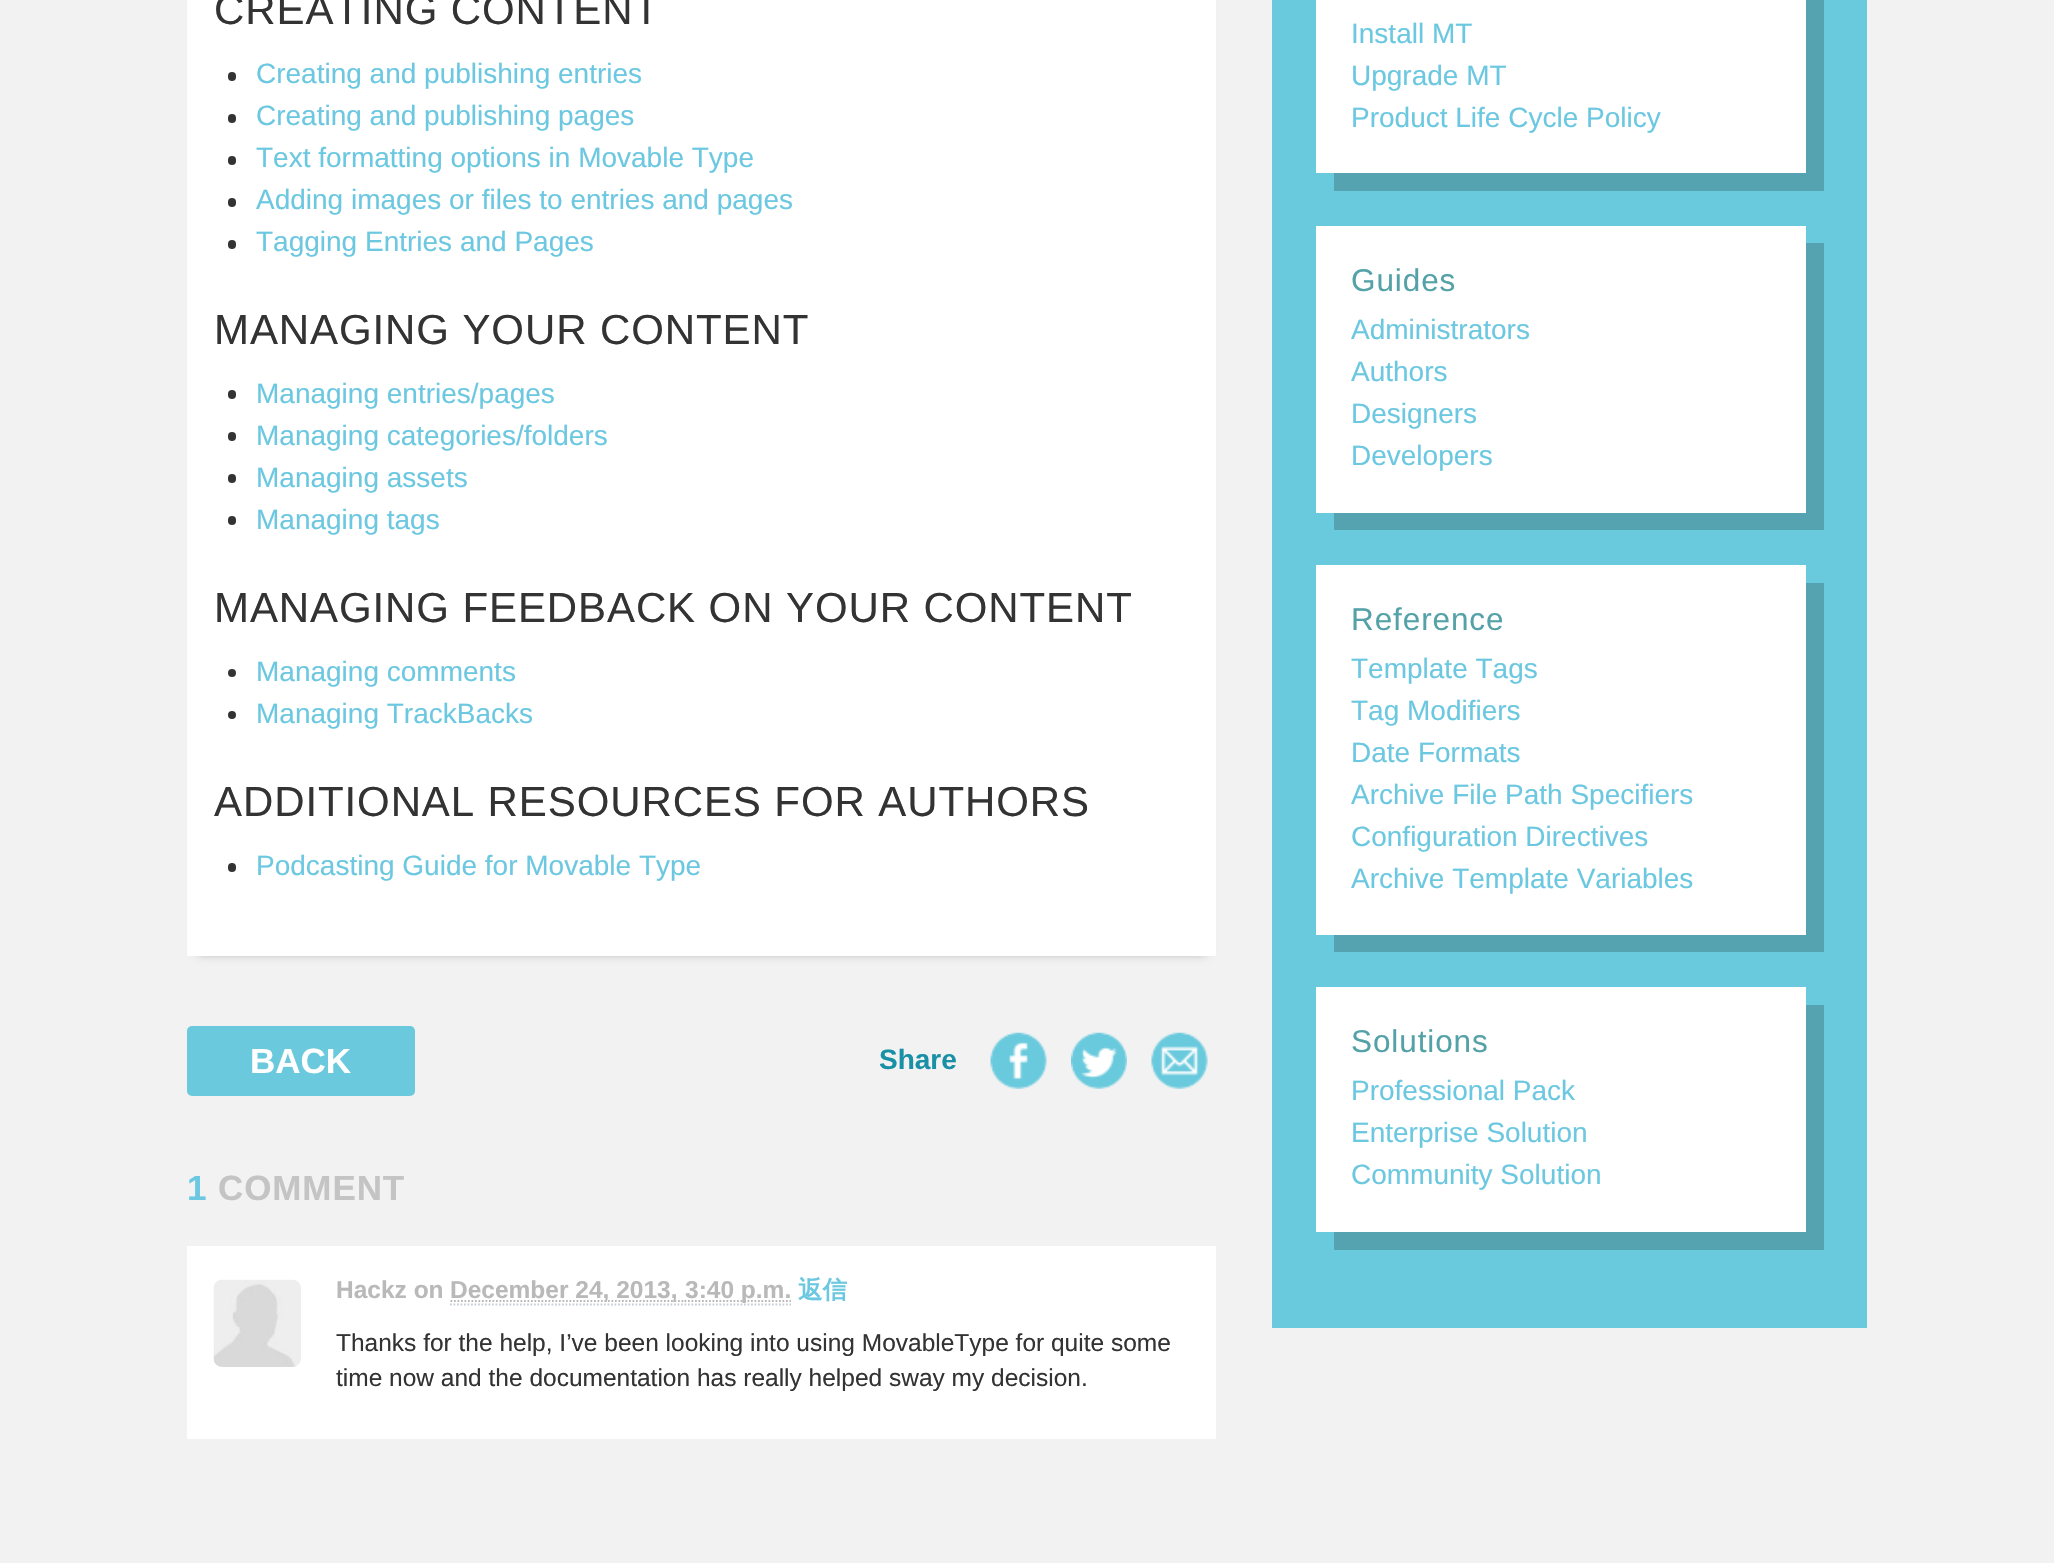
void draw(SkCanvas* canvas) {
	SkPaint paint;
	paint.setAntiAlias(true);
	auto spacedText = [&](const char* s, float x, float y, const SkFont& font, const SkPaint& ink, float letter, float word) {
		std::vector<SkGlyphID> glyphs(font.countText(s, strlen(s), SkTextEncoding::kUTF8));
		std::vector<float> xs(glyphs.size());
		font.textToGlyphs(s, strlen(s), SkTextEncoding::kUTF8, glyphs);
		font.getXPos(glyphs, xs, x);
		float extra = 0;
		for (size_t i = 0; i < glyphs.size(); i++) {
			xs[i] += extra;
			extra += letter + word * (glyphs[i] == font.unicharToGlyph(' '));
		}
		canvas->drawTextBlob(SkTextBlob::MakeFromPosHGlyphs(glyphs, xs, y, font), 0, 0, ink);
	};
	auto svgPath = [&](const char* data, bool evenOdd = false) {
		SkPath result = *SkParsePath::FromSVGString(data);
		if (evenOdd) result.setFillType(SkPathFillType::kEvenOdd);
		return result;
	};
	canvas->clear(0xfff2f2f2);
	paint.setColor(0x4d000000);
	paint.setMaskFilter(SkMaskFilter::MakeBlur(kNormal_SkBlurStyle, 4.5));
	canvas->drawRect(SkRect::MakeXYWH(198, -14, 1008, 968), paint);
	paint.setMaskFilter(nullptr);
	paint.setColor(0xffffffff);
	canvas->drawRect(SkRect::MakeXYWH(187, 0, 1029, 956), paint);
	SkFont f1(fontMgr->matchFamilyStyle("Liberation Sans", SkFontStyle::Normal()), 42);
	f1.setSubpixel(true);
	paint.setColor(0xff333333);
	spacedText("CREATING CONTENT", 214, 24, f1, paint, 0.9, 0);
	canvas->drawRoundRect(SkRect::MakeXYWH(228, 72, 8, 9), 4, 4, paint);
	SkFont f2(fontMgr->matchFamilyStyle("Liberation Sans", SkFontStyle::Normal()), 28);
	f2.setSubpixel(true);
	paint.setColor(0xff6cc8e1);
	canvas->drawString("Creating and publishing entries", 256, 83, f2, paint);
	paint.setColor(0xff333333);
	canvas->drawRoundRect(SkRect::MakeXYWH(228, 114, 8, 9), 4, 4, paint);
	paint.setColor(0xff6cc8e1);
	canvas->drawString("Creating and publishing pages", 256, 125, f2, paint);
	paint.setColor(0xff333333);
	canvas->drawRoundRect(SkRect::MakeXYWH(228, 156, 8, 9), 4, 4, paint);
	paint.setColor(0xff6cc8e1);
	canvas->drawString("Text formatting options in Movable Type", 256, 167, f2, paint);
	paint.setColor(0xff333333);
	canvas->drawRoundRect(SkRect::MakeXYWH(228, 198, 8, 9), 4, 4, paint);
	paint.setColor(0xff6cc8e1);
	canvas->drawString("Adding images or files to entries and pages", 256, 209, f2, paint);
	paint.setColor(0xff333333);
	canvas->drawRoundRect(SkRect::MakeXYWH(228, 240, 8, 9), 4, 4, paint);
	paint.setColor(0xff6cc8e1);
	canvas->drawString("Tagging Entries and Pages", 256, 251, f2, paint);
	paint.setColor(0xff333333);
	spacedText("MANAGING YOUR CONTENT", 214, 344, f1, paint, 0.9, 0);
	canvas->drawRoundRect(SkRect::MakeXYWH(228, 390, 8, 9), 4, 4, paint);
	paint.setColor(0xff6cc8e1);
	canvas->drawString("Managing entries/pages", 256, 403, f2, paint);
	paint.setColor(0xff333333);
	canvas->drawRoundRect(SkRect::MakeXYWH(228, 432, 8, 9), 4, 4, paint);
	paint.setColor(0xff6cc8e1);
	canvas->drawString("Managing categories/folders", 256, 445, f2, paint);
	paint.setColor(0xff333333);
	canvas->drawRoundRect(SkRect::MakeXYWH(228, 474, 8, 9), 4, 4, paint);
	paint.setColor(0xff6cc8e1);
	canvas->drawString("Managing assets", 256, 487, f2, paint);
	paint.setColor(0xff333333);
	canvas->drawRoundRect(SkRect::MakeXYWH(228, 516, 8, 9), 4, 4, paint);
	paint.setColor(0xff6cc8e1);
	canvas->drawString("Managing tags", 256, 529, f2, paint);
	paint.setColor(0xff333333);
	spacedText("MANAGING FEEDBACK ON YOUR CONTENT", 214, 622, f1, paint, 0.9, 0);
	canvas->drawCircle(232, 673, 4, paint);
	paint.setColor(0xff6cc8e1);
	canvas->drawString("Managing comments", 256, 681, f2, paint);
	paint.setColor(0xff333333);
	canvas->drawCircle(232, 715, 4, paint);
	paint.setColor(0xff6cc8e1);
	canvas->drawString("Managing TrackBacks", 256, 723, f2, paint);
	paint.setColor(0xff333333);
	spacedText("ADDITIONAL RESOURCES FOR AUTHORS", 214, 816, f1, paint, 0.9, 0);
	canvas->drawRoundRect(SkRect::MakeXYWH(228, 863, 8, 9), 4, 4, paint);
	paint.setColor(0xff6cc8e1);
	canvas->drawString("Podcasting Guide for Movable Type", 256, 875, f2, paint);
	paint.setColor(0xff6ac9dd);
	canvas->drawRoundRect(SkRect::MakeXYWH(187, 1026, 228, 70), 5, 5, paint);
	SkFont f3(fontMgr->matchFamilyStyle("Liberation Sans", SkFontStyle::Bold()), 35);
	f3.setSubpixel(true);
	paint.setColor(0xffffffff);
	canvas->drawString("BACK", 250, 1073, f3, paint);
	SkFont f4(fontMgr->matchFamilyStyle("Liberation Sans", SkFontStyle::Bold()), 28);
	f4.setSubpixel(true);
	paint.setColor(0xff1990a6);
	canvas->drawString("Share", 879, 1069, f4, paint);
	canvas->drawImageRect(SkImages::DeferredFromEncodedData(SkData::MakeFromFileName("img1.png")), SkRect::MakeXYWH(990, 1032, 57, 57), SkSamplingOptions());
	canvas->drawImageRect(SkImages::DeferredFromEncodedData(SkData::MakeFromFileName("img2.png")), SkRect::MakeXYWH(1071, 1032, 56, 57), SkSamplingOptions());
	canvas->drawImageRect(SkImages::DeferredFromEncodedData(SkData::MakeFromFileName("img3.png")), SkRect::MakeXYWH(1151, 1032, 57, 57), SkSamplingOptions());
	paint.setColor(0xff6cc8e1);
	spacedText("1", 187, 1200, f3, paint, 0.9, 0);
	paint.setColor(0xffc4c4c4);
	spacedText("COMMENT", 218, 1200, f3, paint, 0.9, 0);
	paint.setColor(0xffffffff);
	canvas->drawRect(SkRect::MakeXYWH(187, 1246, 1029, 193), paint);
	canvas->drawImageRect(SkImages::DeferredFromEncodedData(SkData::MakeFromFileName("img4.png")), SkRect::MakeXYWH(213, 1279, 88, 88), SkSamplingOptions());
	SkFont f5(fontMgr->matchFamilyStyle("Liberation Sans", SkFontStyle::Bold()), 24.5);
	f5.setSubpixel(true);
	paint.setColor(0xffb9b9b9);
	canvas->drawString("Hackz on", 336, 1298, f5, paint);
	paint.setStroke(true);
	paint.setStrokeWidth(1.8);
	paint.setPathEffect(SkDashPathEffect::Make({{1.75f, 1.75f}}, 0));
	canvas->drawPath(svgPath("M450.5 1301H684.5"), paint);
	paint.setPathEffect(nullptr);
	paint.setStroke(false);
	canvas->drawString("December 24, 2013,", 450, 1298, f5, paint);
	paint.setStroke(true);
	paint.setColor(0xffc7ced6);
	paint.setPathEffect(SkDashPathEffect::Make({{1.75f, 1.75f}}, 0));
	canvas->drawPath(svgPath("M450 1304.5H791"), paint);
	paint.setPathEffect(nullptr);
	paint.setColor(0xffb9b9b9);
	paint.setPathEffect(SkDashPathEffect::Make({{1.75f, 1.75f}}, 0));
	canvas->drawPath(svgPath("M684.5 1301H791"), paint);
	paint.setPathEffect(nullptr);
	paint.setStroke(false);
	canvas->drawString("3:40 p.m.", 685, 1298, f5, paint);
	SkFont f6(fontMgr->matchFamilyStyle("WenQuanYi Zen Hei", SkFontStyle::Bold()), 24.5);
	f6.setSubpixel(true);
	paint.setColor(0xff6cc8e1);
	canvas->drawString("返信", 798, 1298, f6, paint);
	SkFont f7(fontMgr->matchFamilyStyle("Liberation Sans", SkFontStyle::Normal()), 24.5);
	f7.setSubpixel(true);
	paint.setColor(0xff333333);
	canvas->drawString("Thanks for the help, I’ve been looking into using MovableType for quite some", 336, 1351, f7, paint);
	canvas->drawString("time now and the documentation has really helped sway my decision.", 336, 1386, f7, paint);
	paint.setColor(0xff6acadd);
	canvas->drawRect(SkRect::MakeXYWH(1272, 0, 595, 1328), paint);
	paint.setColor(0xff55a2b1);
	canvas->drawPath(svgPath("M1334 173V191H1824V-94H1806V173Z"), paint);
	paint.setColor(0xffffffff);
	canvas->drawRect(SkRect::MakeXYWH(1316, 0, 490, 173), paint);
	paint.setColor(0xff6cc8e1);
	canvas->drawString("Install MT", 1351, 43, f2, paint);
	canvas->drawString("Upgrade MT", 1351, 85, f2, paint);
	canvas->drawString("Product Life Cycle Policy", 1351, 127, f2, paint);
	paint.setColor(0xff55a2b1);
	canvas->drawPath(svgPath("M1334 513V530H1824V243H1806V513Z"), paint);
	paint.setColor(0xffffffff);
	canvas->drawRect(SkRect::MakeXYWH(1316, 226, 490, 287), paint);
	SkFont f8(fontMgr->matchFamilyStyle("Liberation Sans", SkFontStyle::Normal()), 31.5);
	f8.setSubpixel(true);
	paint.setColor(0xff54a2a8);
	spacedText("Guides", 1351, 291, f8, paint, 0.9, 0);
	paint.setColor(0xff6cc8e1);
	canvas->drawString("Administrators", 1351, 339, f2, paint);
	canvas->drawString("Authors", 1351, 381, f2, paint);
	canvas->drawString("Designers", 1351, 423, f2, paint);
	canvas->drawString("Developers", 1351, 465, f2, paint);
	paint.setColor(0xff55a2b1);
	canvas->drawPath(svgPath("M1334 934V952H1824V583H1806V934Z"), paint);
	paint.setColor(0xffffffff);
	canvas->drawRect(SkRect::MakeXYWH(1316, 565, 490, 370), paint);
	paint.setColor(0xff54a2a8);
	spacedText("Reference", 1351, 630, f8, paint, 0.9, 0);
	paint.setColor(0xff6cc8e1);
	canvas->drawString("Template Tags", 1351, 678, f2, paint);
	canvas->drawString("Tag Modifiers", 1351, 720, f2, paint);
	canvas->drawString("Date Formats", 1351, 762, f2, paint);
	canvas->drawString("Archive File Path Specifiers", 1351, 804, f2, paint);
	canvas->drawString("Configuration Directives", 1351, 846, f2, paint);
	canvas->drawString("Archive Template Variables", 1351, 888, f2, paint);
	paint.setColor(0xff55a2b1);
	canvas->drawPath(svgPath("M1334 1232V1250H1824V1005H1806V1232Z"), paint);
	paint.setColor(0xffffffff);
	canvas->drawRect(SkRect::MakeXYWH(1316, 987, 490, 245), paint);
	paint.setColor(0xff54a2a8);
	spacedText("Solutions", 1351, 1052, f8, paint, 0.9, 0);
	paint.setColor(0xff6cc8e1);
	canvas->drawString("Professional Pack", 1351, 1100, f2, paint);
	canvas->drawString("Enterprise Solution", 1351, 1142, f2, paint);
	canvas->drawString("Community Solution", 1351, 1184, f2, paint);
}
